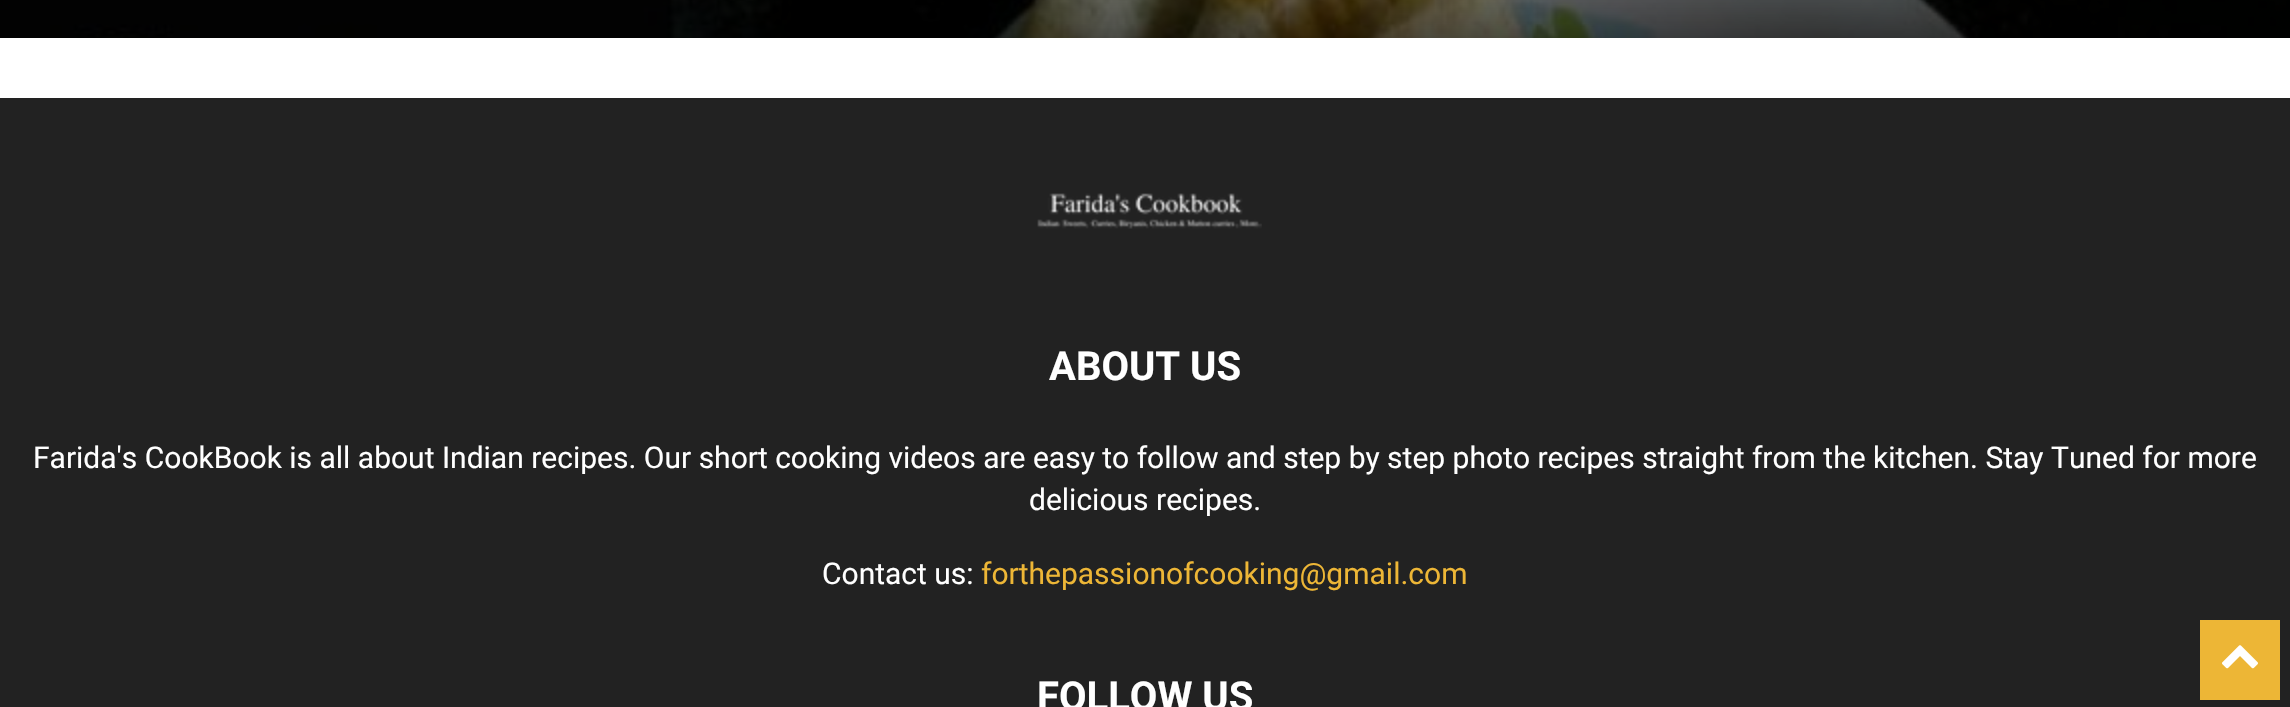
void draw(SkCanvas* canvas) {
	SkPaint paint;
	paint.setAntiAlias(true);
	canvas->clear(0xffffffff);
	canvas->drawImageRect(SkImages::DeferredFromEncodedData(SkData::MakeFromFileName("img1.png")), SkRect::MakeXYWH(0, 0, 2290, 38), SkSamplingOptions());
	paint.setColor(0xff222222);
	canvas->drawRect(SkRect::MakeXYWH(0, 98, 2290, 609), paint);
	canvas->drawImageRect(SkImages::DeferredFromEncodedData(SkData::MakeFromFileName("img2.png")), SkRect::MakeXYWH(1037, 193, 225, 36), SkSamplingOptions());
	SkFont f1(fontMgr->matchFamilyStyle("Roboto", SkFontStyle::Bold()), 40);
	f1.setSubpixel(true);
	paint.setColor(0xffffffff);
	canvas->drawString("ABOUT US", 1049, 380, f1, paint);
	SkFont f2(fontMgr->matchFamilyStyle("Roboto", SkFontStyle::Normal()), 30);
	f2.setSubpixel(true);
	canvas->drawString("Farida's CookBook is all about Indian recipes. Our short cooking videos are easy to follow and step by step photo recipes straight from the kitchen. Stay Tuned for more", 33, 468, f2, paint);
	canvas->drawString("delicious recipes.", 1029, 510, f2, paint);
	canvas->drawString("Contact us:", 822, 584, f2, paint);
	paint.setColor(0xffedb636);
	canvas->drawString("forthepassionofcooking@gmail.com", 981, 584, f2, paint);
	paint.setColor(0xffffffff);
	canvas->drawString("FOLLOW US", 1037, 710, f1, paint);
	paint.setColor(0xffedb636);
	canvas->drawRect(SkRect::MakeXYWH(2200, 620, 80, 80), paint);
	canvas->drawImageRect(SkImages::DeferredFromEncodedData(SkData::MakeFromFileName("img3.png")), SkRect::MakeXYWH(2222, 645, 36, 24), SkSamplingOptions());
}
